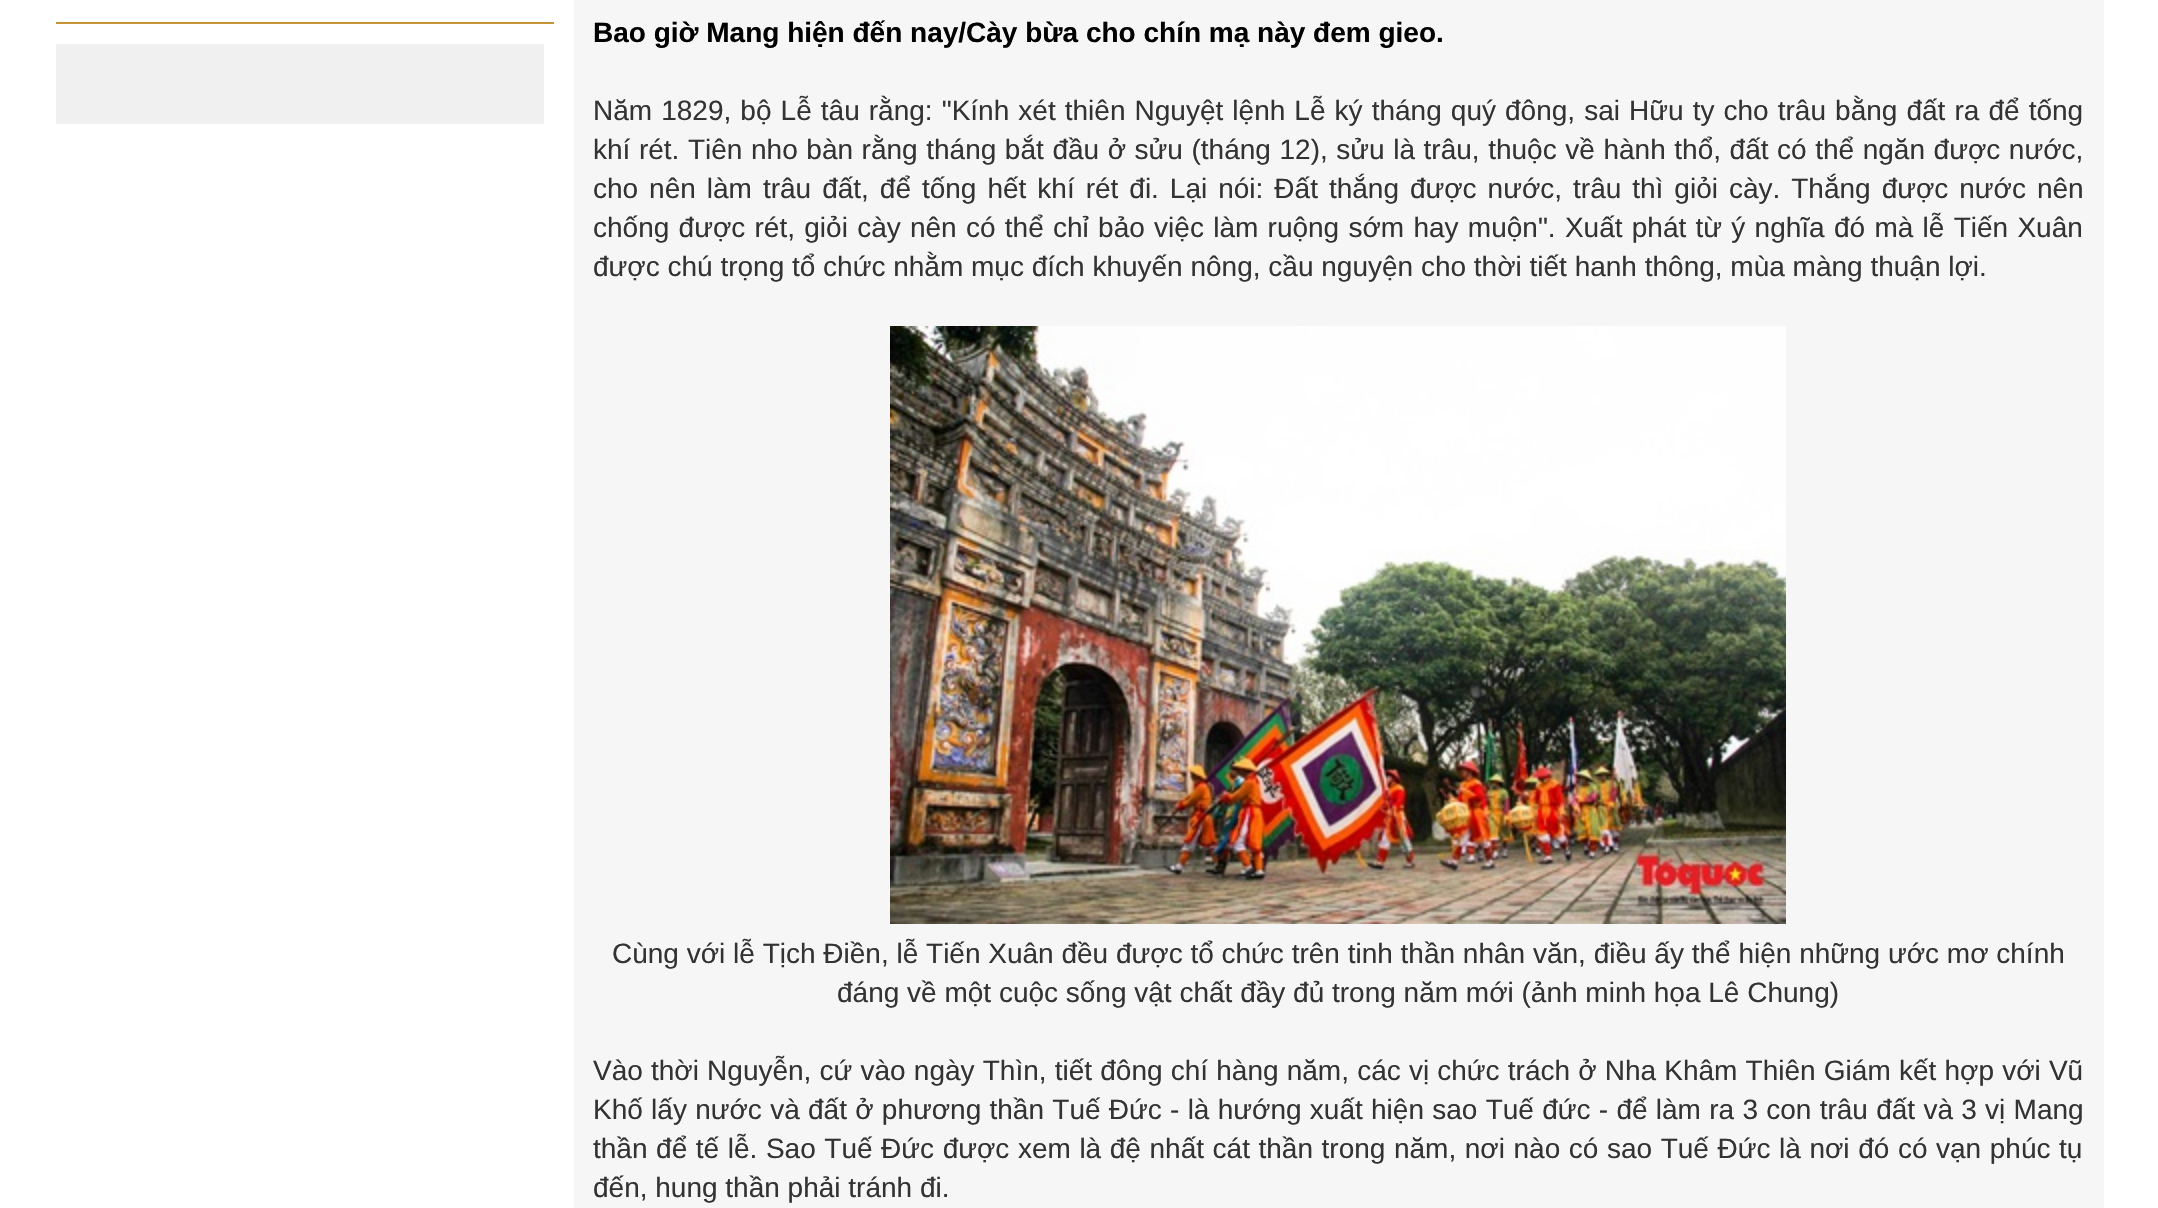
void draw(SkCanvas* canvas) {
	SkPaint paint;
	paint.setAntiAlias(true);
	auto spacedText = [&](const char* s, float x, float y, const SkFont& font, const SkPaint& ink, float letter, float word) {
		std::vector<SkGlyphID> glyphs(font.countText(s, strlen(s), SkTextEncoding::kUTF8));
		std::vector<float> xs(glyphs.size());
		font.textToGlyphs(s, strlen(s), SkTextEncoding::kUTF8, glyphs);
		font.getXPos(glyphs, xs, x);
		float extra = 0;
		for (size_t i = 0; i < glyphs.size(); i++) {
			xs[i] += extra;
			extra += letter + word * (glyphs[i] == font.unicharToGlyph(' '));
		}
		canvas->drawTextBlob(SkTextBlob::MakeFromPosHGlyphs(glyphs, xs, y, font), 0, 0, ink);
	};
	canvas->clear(0xffffffff);
	paint.setColor(0xffc69435);
	canvas->drawRect(SkRect::MakeXYWH(56, 22, 498, 2), paint);
	paint.setColor(0xfff0f0f0);
	canvas->drawRect(SkRect::MakeXYWH(56, 44, 488, 80), paint);
	paint.setColor(0xfff6f6f6);
	canvas->drawRect(SkRect::MakeXYWH(574, 0, 1530, 1208), paint);
	SkFont f1(fontMgr->matchFamilyStyle("Liberation Sans", SkFontStyle::Bold()), 28);
	f1.setSubpixel(true);
	paint.setColor(0xff000000);
	canvas->drawString("Bao giờ Mang hiện đến nay/Cày bừa cho chín mạ này đem gieo.", 593, 42, f1, paint);
	SkFont f2(fontMgr->matchFamilyStyle("Liberation Sans", SkFontStyle::Normal()), 28);
	f2.setSubpixel(true);
	paint.setColor(0xff333333);
	spacedText("Năm 1829, bộ Lễ tâu rằng: \"Kính xét thiên Nguyệt lệnh Lễ ký tháng quý đông, sai Hữu ty cho trâu bằng đất ra để tống", 593, 120, f2, paint, 0, 1.3);
	spacedText("khí rét. Tiên nho bàn rằng tháng bắt đầu ở sửu (tháng 12), sửu là trâu, thuộc về hành thổ, đất có thể ngăn được nước,", 593, 159, f2, paint, 0, 0.8);
	spacedText("cho nên làm trâu đất, để tống hết khí rét đi. Lại nói: Đất thắng được nước, trâu thì giỏi cày. Thắng được nước nên", 593, 198, f2, paint, 0, 3.2);
	spacedText("chống được rét, giỏi cày nên có thể chỉ bảo việc làm ruộng sớm hay muộn\". Xuất phát từ ý nghĩa đó mà lễ Tiến Xuân", 593, 237, f2, paint, 0, 1.5);
	canvas->drawString("được chú trọng tổ chức nhằm mục đích khuyến nông, cầu nguyện cho thời tiết hanh thông, mùa màng thuận lợi.", 593, 276, f2, paint);
	canvas->drawImageRect(SkImages::DeferredFromEncodedData(SkData::MakeFromFileName("img1.png")), SkRect::MakeXYWH(890, 326, 896, 598), SkSamplingOptions());
	canvas->drawString("Cùng với lễ Tịch Điền, lễ Tiến Xuân đều được tổ chức trên tinh thần nhân văn, điều ấy thể hiện những ước mơ chính", 612, 963, f2, paint);
	canvas->drawString("đáng về một cuộc sống vật chất đầy đủ trong năm mới (ảnh minh họa Lê Chung)", 837, 1002, f2, paint);
	spacedText("Vào thời Nguyễn, cứ vào ngày Thìn, tiết đông chí hàng năm, các vị chức trách ở Nha Khâm Thiên Giám kết hợp với Vũ", 593, 1080, f2, paint, 0, 0.4);
	spacedText("Khố lấy nước và đất ở phương thần Tuế Đức - là hướng xuất hiện sao Tuế đức - để làm ra 3 con trâu đất và 3 vị Mang", 593, 1119, f2, paint, 0, 0.5);
	spacedText("thần để tế lễ. Sao Tuế Đức được xem là đệ nhất cát thần trong năm, nơi nào có sao Tuế Đức là nơi đó có vạn phúc tụ", 593, 1158, f2, paint, 0, 0.8);
	canvas->drawString("đến, hung thần phải tránh đi.", 593, 1197, f2, paint);
}
